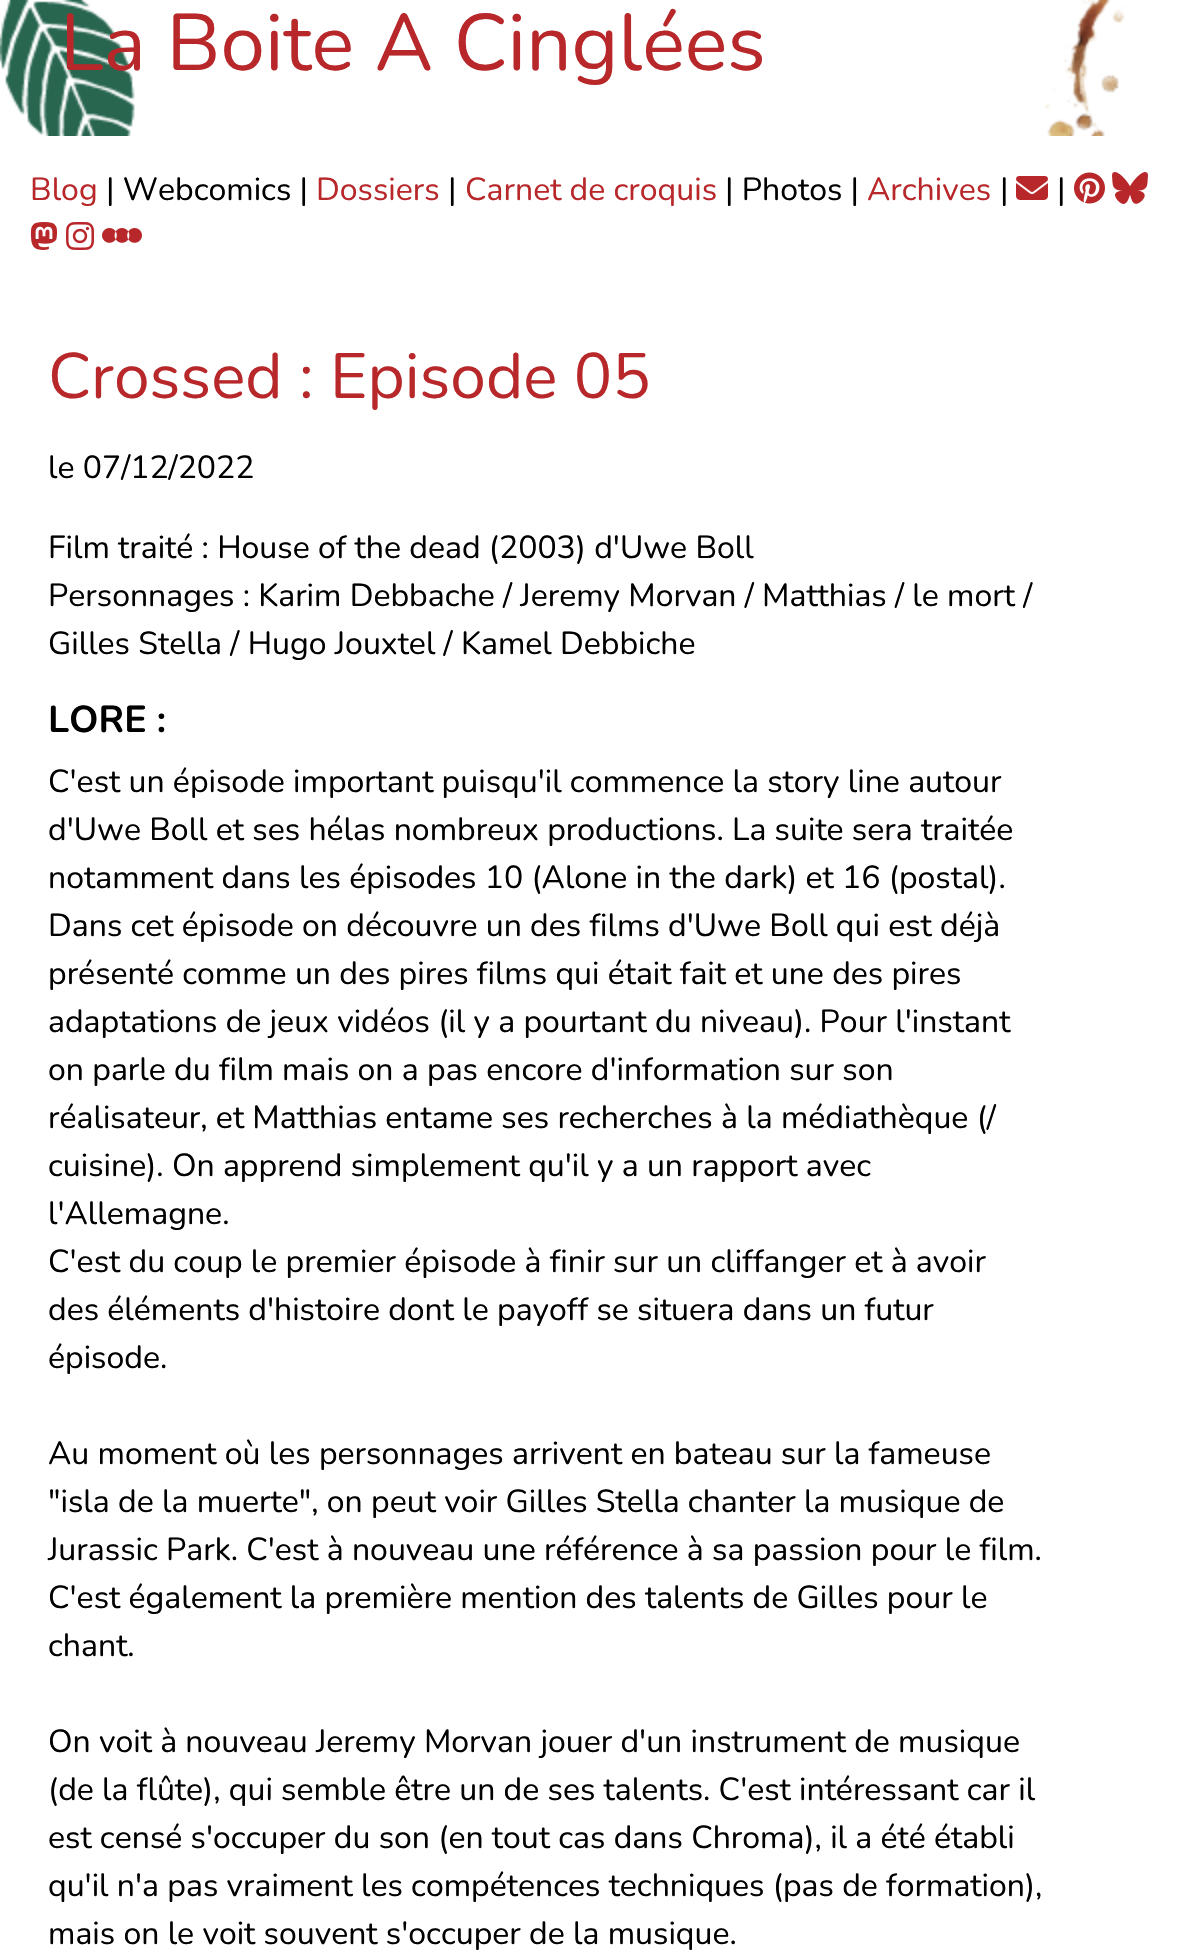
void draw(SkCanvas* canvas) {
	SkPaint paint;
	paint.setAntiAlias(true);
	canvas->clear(0xffffffff);
	canvas->drawImageRect(SkImages::DeferredFromEncodedData(SkData::MakeFromFileName("img1.png")), SkRect::MakeXYWH(0, 0, 1125, 136), SkSamplingOptions());
	SkFont f1(fontMgr->matchFamilyStyle("Nunito", SkFontStyle::Normal()), 80);
	f1.setSubpixel(true);
	paint.setColor(0xffb8282b);
	canvas->drawString("La Boite A Cinglées", 60, 70, f1, paint);
	SkFont f2(fontMgr->matchFamilyStyle("Nunito", SkFontStyle::Normal()), 32);
	f2.setSubpixel(true);
	canvas->drawString("Blog", 30, 200, f2, paint);
	paint.setColor(0xff000000);
	canvas->drawString("| Webcomics |", 106, 200, f2, paint);
	paint.setColor(0xffb8282b);
	canvas->drawString("Dossiers", 316, 200, f2, paint);
	paint.setColor(0xff000000);
	canvas->drawString("|", 448, 200, f2, paint);
	paint.setColor(0xffb8282b);
	canvas->drawString("Carnet de croquis", 465, 200, f2, paint);
	paint.setColor(0xff000000);
	canvas->drawString("| Photos |", 725, 200, f2, paint);
	paint.setColor(0xffb8282b);
	canvas->drawString("Archives", 867, 200, f2, paint);
	paint.setColor(0xff000000);
	canvas->drawString("|", 1000, 200, f2, paint);
	canvas->drawImageRect(SkImages::DeferredFromEncodedData(SkData::MakeFromFileName("img2.png")), SkRect::MakeXYWH(1016, 176, 32, 24), SkSamplingOptions());
	canvas->drawString("|", 1057, 200, f2, paint);
	canvas->drawImageRect(SkImages::DeferredFromEncodedData(SkData::MakeFromFileName("img3.png")), SkRect::MakeXYWH(1074, 172, 31, 32), SkSamplingOptions());
	canvas->drawImageRect(SkImages::DeferredFromEncodedData(SkData::MakeFromFileName("img4.png")), SkRect::MakeXYWH(1112, 172, 36, 32), SkSamplingOptions());
	canvas->drawImageRect(SkImages::DeferredFromEncodedData(SkData::MakeFromFileName("img5.png")), SkRect::MakeXYWH(30, 222, 28, 28), SkSamplingOptions());
	canvas->drawImageRect(SkImages::DeferredFromEncodedData(SkData::MakeFromFileName("img6.png")), SkRect::MakeXYWH(66, 222, 28, 28), SkSamplingOptions());
	canvas->drawImageRect(SkImages::DeferredFromEncodedData(SkData::MakeFromFileName("img7.png")), SkRect::MakeXYWH(102, 228, 40, 15), SkSamplingOptions());
	SkFont f3(fontMgr->matchFamilyStyle("Nunito", SkFontStyle::Normal()), 64);
	f3.setSubpixel(true);
	paint.setColor(0xffb8282b);
	canvas->drawString("Crossed : Episode 05", 48, 398, f3, paint);
	paint.setColor(0xff000000);
	canvas->drawString("le 07/12/2022", 48, 478, f2, paint);
	canvas->drawString("Film traité : House of the dead (2003) d'Uwe Boll", 48, 558, f2, paint);
	canvas->drawString("Personnages : Karim Debbache / Jeremy Morvan / Matthias / le mort /", 48, 606, f2, paint);
	canvas->drawString("Gilles Stella / Hugo Jouxtel / Kamel Debbiche", 48, 654, f2, paint);
	SkFont f4(fontMgr->matchFamilyStyle("Nunito", SkFontStyle::Bold()), 37.5);
	f4.setSubpixel(true);
	canvas->drawString("LORE :", 48, 732, f4, paint);
	canvas->drawString("C'est un épisode important puisqu'il commence la story line autour", 48, 792, f2, paint);
	canvas->drawString("d'Uwe Boll et ses hélas nombreux productions. La suite sera traitée", 48, 840, f2, paint);
	canvas->drawString("notamment dans les épisodes 10 (Alone in the dark) et 16 (postal).", 48, 888, f2, paint);
	canvas->drawString("Dans cet épisode on découvre un des films d'Uwe Boll qui est déjà", 48, 936, f2, paint);
	canvas->drawString("présenté comme un des pires films qui était fait et une des pires", 48, 984, f2, paint);
	canvas->drawString("adaptations de jeux vidéos (il y a pourtant du niveau). Pour l'instant", 48, 1032, f2, paint);
	canvas->drawString("on parle du film mais on a pas encore d'information sur son", 48, 1080, f2, paint);
	canvas->drawString("réalisateur, et Matthias entame ses recherches à la médiathèque (/", 48, 1128, f2, paint);
	canvas->drawString("cuisine). On apprend simplement qu'il y a un rapport avec", 48, 1176, f2, paint);
	canvas->drawString("l'Allemagne.", 48, 1224, f2, paint);
	canvas->drawString("C'est du coup le premier épisode à finir sur un cliffanger et à avoir", 48, 1272, f2, paint);
	canvas->drawString("des éléments d'histoire dont le payoff se situera dans un futur", 48, 1320, f2, paint);
	canvas->drawString("épisode.", 48, 1368, f2, paint);
	canvas->drawString("Au moment où les personnages arrivent en bateau sur la fameuse", 48, 1464, f2, paint);
	canvas->drawString("\"isla de la muerte\", on peut voir Gilles Stella chanter la musique de", 48, 1512, f2, paint);
	canvas->drawString("Jurassic Park. C'est à nouveau une référence à sa passion pour le film.", 48, 1560, f2, paint);
	canvas->drawString("C'est également la première mention des talents de Gilles pour le", 48, 1608, f2, paint);
	canvas->drawString("chant.", 48, 1656, f2, paint);
	canvas->drawString("On voit à nouveau Jeremy Morvan jouer d'un instrument de musique", 48, 1752, f2, paint);
	canvas->drawString("(de la flûte), qui semble être un de ses talents. C'est intéressant car il", 48, 1800, f2, paint);
	canvas->drawString("est censé s'occuper du son (en tout cas dans Chroma), il a été établi", 48, 1848, f2, paint);
	canvas->drawString("qu'il n'a pas vraiment les compétences techniques (pas de formation),", 48, 1896, f2, paint);
	canvas->drawString("mais on le voit souvent s'occuper de la musique.", 48, 1944, f2, paint);
}
